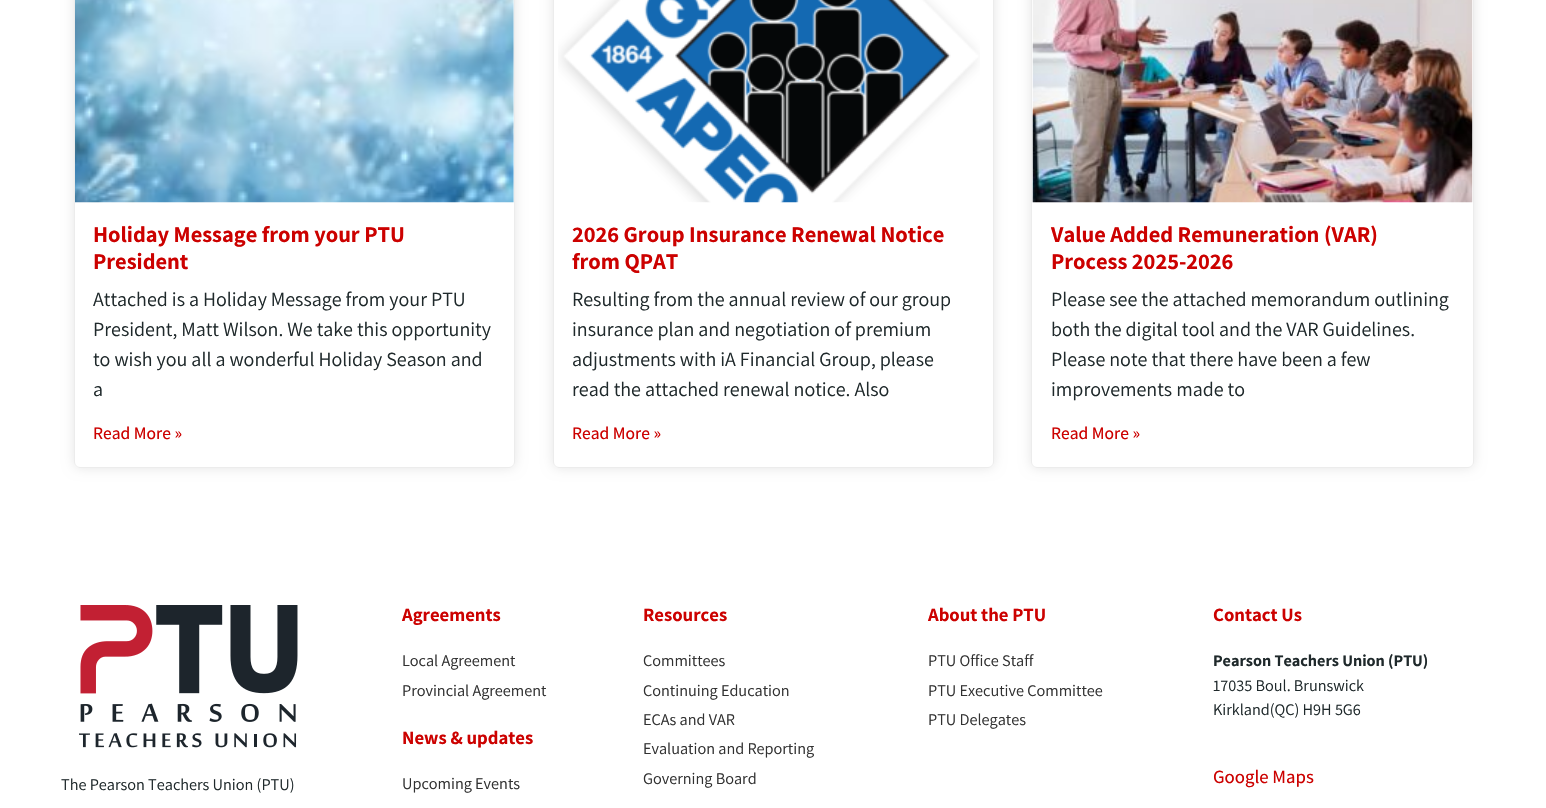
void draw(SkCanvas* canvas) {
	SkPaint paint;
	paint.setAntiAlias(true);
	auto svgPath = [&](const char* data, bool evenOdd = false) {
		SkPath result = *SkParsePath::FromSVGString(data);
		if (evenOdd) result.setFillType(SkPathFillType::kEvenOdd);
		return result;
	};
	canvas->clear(0xffffffff);
	canvas->save();
	canvas->clipPath(svgPath("M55 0H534V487H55ZM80-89H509C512.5-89 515-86.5 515-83V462C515 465.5 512.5 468 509 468H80C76.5 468 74 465.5 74 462V-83C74-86.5 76.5-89 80-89Z", true), true);
	paint.setColor(0x1a000000);
	paint.setMaskFilter(SkMaskFilter::MakeBlur(kNormal_SkBlurStyle, 6));
	canvas->drawRoundRect(SkRect::MakeXYWH(74, -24, 441, 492), 6, 6, paint);
	paint.setMaskFilter(nullptr);
	canvas->restore();
	paint.setStroke(true);
	paint.setStrokeWidth(1);
	paint.setColor(0xffececec);
	canvas->drawRoundRect(SkRect::MakeXYWH(74.5, -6.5, 440, 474), 5.5, 5.5, paint);
	canvas->drawImageRect(SkImages::DeferredFromEncodedData(SkData::MakeFromFileName("img1.png")), SkRect::MakeXYWH(75, 0, 439, 203), SkSamplingOptions());
	SkFont f1(fontMgr->matchFamilyStyle("Assistant", SkFontStyle::Bold()), 22.5);
	f1.setSubpixel(true);
	paint.setStroke(false);
	paint.setColor(0xffcc0100);
	canvas->drawString("Holiday Message from your PTU", 93, 242, f1, paint);
	canvas->drawString("President", 93, 269, f1, paint);
	SkFont f2(fontMgr->matchFamilyStyle("Assistant", SkFontStyle::Normal()), 20);
	f2.setSubpixel(true);
	paint.setColor(0xff1f292b);
	canvas->drawString("Attached is a Holiday Message from your PTU", 93, 306, f2, paint);
	canvas->drawString("President, Matt Wilson. We take this opportunity", 93, 336, f2, paint);
	canvas->drawString("to wish you all a wonderful Holiday Season and", 93, 366, f2, paint);
	canvas->drawString("a", 93, 396, f2, paint);
	SkFont f3(fontMgr->matchFamilyStyle("Assistant", SkFontStyle(500, SkFontStyle::kNormal_Width, SkFontStyle::kUpright_Slant)), 17.5);
	f3.setSubpixel(true);
	paint.setColor(0xffcc0100);
	canvas->drawString("Read More »", 93, 439, f3, paint);
	canvas->save();
	canvas->clipPath(svgPath("M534 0H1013V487H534ZM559-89H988C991.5-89 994-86.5 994-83V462C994 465.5 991.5 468 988 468H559C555.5 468 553 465.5 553 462V-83C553-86.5 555.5-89 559-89Z", true), true);
	paint.setColor(0x1a000000);
	paint.setMaskFilter(SkMaskFilter::MakeBlur(kNormal_SkBlurStyle, 6));
	canvas->drawRoundRect(SkRect::MakeXYWH(553, -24, 441, 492), 6, 6, paint);
	paint.setMaskFilter(nullptr);
	canvas->restore();
	paint.setStroke(true);
	paint.setColor(0xffececec);
	canvas->drawRoundRect(SkRect::MakeXYWH(553.5, -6.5, 440, 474), 5.5, 5.5, paint);
	canvas->drawImageRect(SkImages::DeferredFromEncodedData(SkData::MakeFromFileName("img2.png")), SkRect::MakeXYWH(558, 0, 422, 203), SkSamplingOptions());
	paint.setStroke(false);
	paint.setColor(0xffcc0100);
	canvas->drawString("2026 Group Insurance Renewal Notice", 572, 242, f1, paint);
	canvas->drawString("from QPAT", 572, 269, f1, paint);
	paint.setColor(0xff1f292b);
	canvas->drawString("Resulting from the annual review of our group", 572, 306, f2, paint);
	canvas->drawString("insurance plan and negotiation of premium", 572, 336, f2, paint);
	canvas->drawString("adjustments with iA Financial Group, please", 572, 366, f2, paint);
	canvas->drawString("read the attached renewal notice. Also", 572, 396, f2, paint);
	paint.setColor(0xffcc0100);
	canvas->drawString("Read More »", 572, 439, f3, paint);
	canvas->save();
	canvas->clipPath(svgPath("M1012 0H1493V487H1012ZM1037-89H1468C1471.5-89 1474-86.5 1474-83V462C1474 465.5 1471.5 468 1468 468H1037C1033.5 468 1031 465.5 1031 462V-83C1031-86.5 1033.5-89 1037-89Z", true), true);
	paint.setColor(0x1a000000);
	paint.setMaskFilter(SkMaskFilter::MakeBlur(kNormal_SkBlurStyle, 6));
	canvas->drawRoundRect(SkRect::MakeXYWH(1031, -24, 443, 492), 6, 6, paint);
	paint.setMaskFilter(nullptr);
	canvas->restore();
	paint.setStroke(true);
	paint.setColor(0xffececec);
	canvas->drawRoundRect(SkRect::MakeXYWH(1031.5, -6.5, 442, 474), 5.5, 5.5, paint);
	canvas->drawImageRect(SkImages::DeferredFromEncodedData(SkData::MakeFromFileName("img3.png")), SkRect::MakeXYWH(1032, 0, 441, 203), SkSamplingOptions());
	paint.setStroke(false);
	paint.setColor(0xffcc0100);
	canvas->drawString("Value Added Remuneration (VAR)", 1051, 242, f1, paint);
	canvas->drawString("Process 2025-2026", 1051, 269, f1, paint);
	paint.setColor(0xff1f292b);
	canvas->drawString("Please see the attached memorandum outlining", 1051, 306, f2, paint);
	canvas->drawString("both the digital tool and the VAR Guidelines.", 1051, 336, f2, paint);
	canvas->drawString("Please note that there have been a few", 1051, 366, f2, paint);
	canvas->drawString("improvements made to", 1051, 396, f2, paint);
	paint.setColor(0xffcc0100);
	canvas->drawString("Read More »", 1051, 439, f3, paint);
	canvas->drawImageRect(SkImages::DeferredFromEncodedData(SkData::MakeFromFileName("img4.png")), SkRect::MakeXYWH(79, 605, 219, 143), SkSamplingOptions());
	SkFont f4(fontMgr->matchFamilyStyle("Assistant", SkFontStyle::Normal()), 16.25);
	f4.setSubpixel(true);
	paint.setColor(0xff1f292b);
	canvas->drawString("The Pearson Teachers Union (PTU)", 61, 790, f4, paint);
	SkFont f5(fontMgr->matchFamilyStyle("Assistant", SkFontStyle::Bold()), 18.75);
	f5.setSubpixel(true);
	paint.setColor(0xffcc0100);
	canvas->drawString("Agreements", 402, 621, f5, paint);
	paint.setColor(0xff313131);
	canvas->drawString("Local Agreement", 402, 666, f4, paint);
	canvas->drawString("Provincial Agreement", 402, 696, f4, paint);
	paint.setColor(0xffcc0100);
	canvas->drawString("News & updates", 402, 744, f5, paint);
	paint.setColor(0xff313131);
	canvas->drawString("Upcoming Events", 402, 789, f4, paint);
	paint.setColor(0xffcc0100);
	canvas->drawString("Resources", 643, 621, f5, paint);
	paint.setColor(0xff313131);
	canvas->drawString("Committees", 643, 666, f4, paint);
	canvas->drawString("Continuing Education", 643, 696, f4, paint);
	canvas->drawString("ECAs and VAR", 643, 725, f4, paint);
	canvas->drawString("Evaluation and Reporting", 643, 754, f4, paint);
	canvas->drawString("Governing Board", 643, 784, f4, paint);
	paint.setColor(0xffcc0100);
	canvas->drawString("About the PTU", 928, 621, f5, paint);
	paint.setColor(0xff313131);
	canvas->drawString("PTU Office Staff", 928, 666, f4, paint);
	canvas->drawString("PTU Executive Committee", 928, 696, f4, paint);
	canvas->drawString("PTU Delegates", 928, 725, f4, paint);
	paint.setColor(0xffcc0100);
	canvas->drawString("Contact Us", 1213, 621, f5, paint);
	SkFont f6(fontMgr->matchFamilyStyle("Assistant", SkFontStyle::Bold()), 16.25);
	f6.setSubpixel(true);
	paint.setColor(0xff1f292b);
	canvas->drawString("Pearson Teachers Union (PTU)", 1213, 666, f6, paint);
	canvas->drawString("17035 Boul. Brunswick", 1213, 691, f4, paint);
	canvas->drawString("Kirkland(QC) H9H 5G6", 1213, 715, f4, paint);
	SkFont f7(fontMgr->matchFamilyStyle("Assistant", SkFontStyle(500, SkFontStyle::kNormal_Width, SkFontStyle::kUpright_Slant)), 18.75);
	f7.setSubpixel(true);
	paint.setColor(0xffcc0100);
	canvas->drawString("Google Maps", 1213, 783, f7, paint);
}
